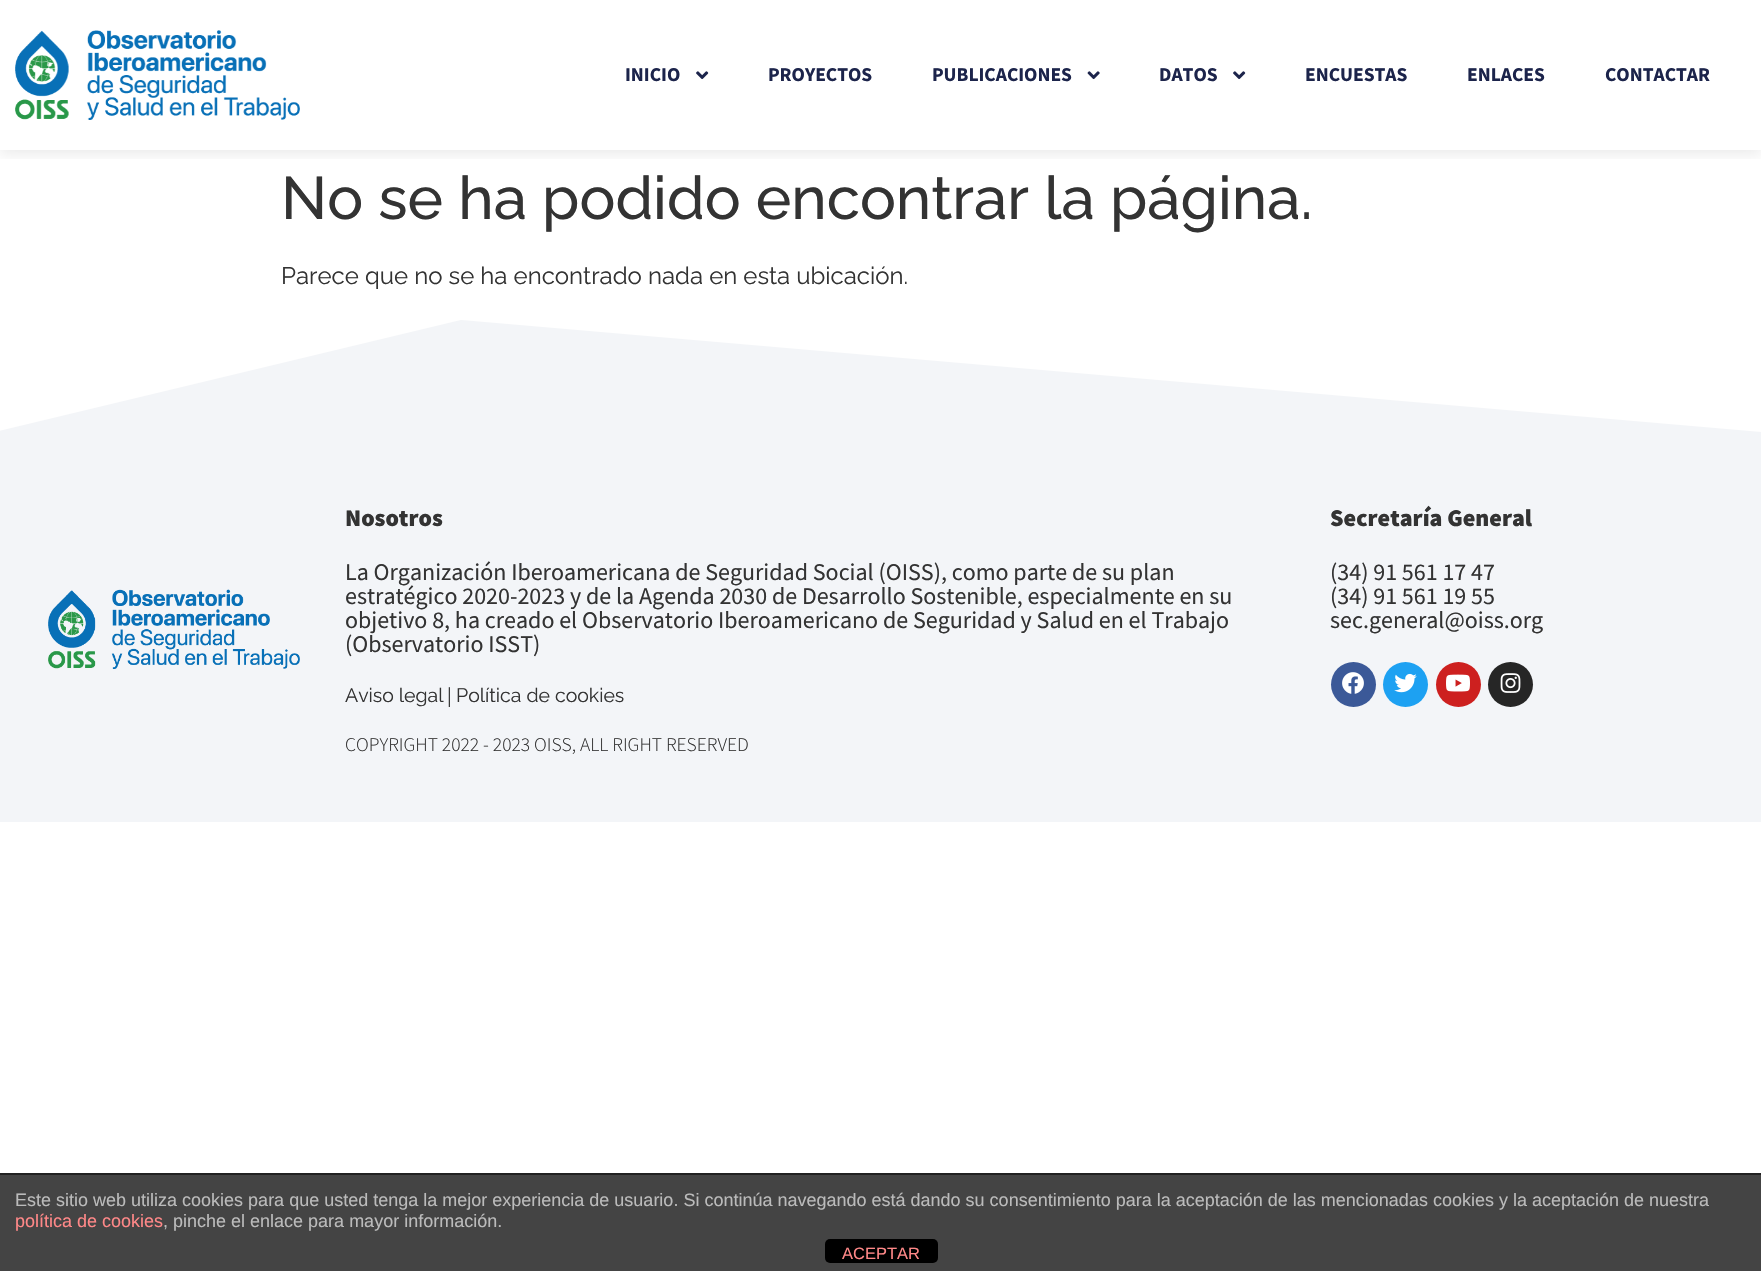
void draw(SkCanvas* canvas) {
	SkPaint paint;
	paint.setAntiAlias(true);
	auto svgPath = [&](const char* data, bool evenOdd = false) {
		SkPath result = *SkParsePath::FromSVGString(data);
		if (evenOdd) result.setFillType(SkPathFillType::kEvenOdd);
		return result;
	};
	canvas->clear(0xffffffff);
	canvas->save();
	canvas->clipRect(SkRect::MakeXYWH(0, 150, 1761, 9));
	paint.setColor(0x17000000);
	paint.setMaskFilter(SkMaskFilter::MakeBlur(kNormal_SkBlurStyle, 7.5));
	canvas->drawRect(SkRect::MakeXYWH(0, 3, 1761, 150), paint);
	paint.setMaskFilter(nullptr);
	canvas->restore();
	canvas->drawImageRect(SkImages::DeferredFromEncodedData(SkData::MakeFromFileName("img1.png")), SkRect::MakeXYWH(15, 30, 285, 90), SkSamplingOptions());
	SkFont f1(fontMgr->matchFamilyStyle("Source Sans Pro", SkFontStyle::Bold()), 19.5);
	f1.setSubpixel(true);
	paint.setColor(0xff1c244b);
	canvas->drawString("INICIO", 625, 81, f1, paint);
	canvas->drawImageRect(SkImages::DeferredFromEncodedData(SkData::MakeFromFileName("img2.png")), SkRect::MakeXYWH(696, 71, 13, 9), SkSamplingOptions());
	canvas->drawString("PROYECTOS", 768, 81, f1, paint);
	canvas->drawString("PUBLICACIONES", 932, 81, f1, paint);
	canvas->drawImageRect(SkImages::DeferredFromEncodedData(SkData::MakeFromFileName("img3.png")), SkRect::MakeXYWH(1087, 71, 13, 9), SkSamplingOptions());
	canvas->drawString("DATOS", 1159, 81, f1, paint);
	canvas->drawImageRect(SkImages::DeferredFromEncodedData(SkData::MakeFromFileName("img2.png")), SkRect::MakeXYWH(1233, 71, 13, 9), SkSamplingOptions());
	canvas->drawString("ENCUESTAS", 1305, 81, f1, paint);
	canvas->drawString("ENLACES", 1467, 81, f1, paint);
	canvas->drawString("CONTACTAR", 1605, 81, f1, paint);
	SkFont f2(fontMgr->matchFamilyStyle("Raleway", SkFontStyle(500, SkFontStyle::kNormal_Width, SkFontStyle::kUpright_Slant)), 60);
	f2.setSubpixel(true);
	paint.setColor(0xff333333);
	canvas->drawString("No se ha podido encontrar la página.", 281, 219, f2, paint);
	SkFont f3(fontMgr->matchFamilyStyle("Raleway", SkFontStyle::Normal()), 24);
	f3.setSubpixel(true);
	canvas->drawString("Parece que no se ha encontrado nada en esta ubicación.", 281, 284, f3, paint);
	paint.setColor(0xfff3f5f8);
	canvas->drawPath(svgPath("M461 320L-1 431V439H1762V432Z"), paint);
	canvas->drawRect(SkRect::MakeXYWH(0, 439, 1761, 383), paint);
	canvas->drawImageRect(SkImages::DeferredFromEncodedData(SkData::MakeFromFileName("img4.png")), SkRect::MakeXYWH(48, 589, 252, 80), SkSamplingOptions());
	SkFont f4(fontMgr->matchFamilyStyle("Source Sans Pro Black", SkFontStyle(900, SkFontStyle::kNormal_Width, SkFontStyle::kUpright_Slant)), 24);
	f4.setSubpixel(true);
	paint.setColor(0xff333333);
	canvas->drawString("Nosotros", 345, 526, f4, paint);
	SkFont f5(fontMgr->matchFamilyStyle("Source Sans Pro", SkFontStyle::Normal()), 24);
	f5.setSubpixel(true);
	canvas->drawString("La Organización Iberoamericana de Seguridad Social (OISS), como parte de su plan", 345, 580, f5, paint);
	canvas->drawString("estratégico 2020-2023 y de la Agenda 2030 de Desarrollo Sostenible, especialmente en su", 345, 604, f5, paint);
	canvas->drawString("objetivo 8, ha creado el Observatorio Iberoamericano de Seguridad y Salud en el Trabajo", 345, 628, f5, paint);
	canvas->drawString("(Observatorio ISST)", 345, 652, f5, paint);
	SkFont f6(fontMgr->matchFamilyStyle("Raleway", SkFontStyle::Normal()), 19.5);
	f6.setSubpixel(true);
	canvas->drawString("Aviso legal", 345, 702, f6, paint);
	SkFont f7(fontMgr->matchFamilyStyle("Source Sans Pro", SkFontStyle::Normal()), 19.5);
	f7.setSubpixel(true);
	canvas->drawString("|", 447, 702, f7, paint);
	canvas->drawString("Política de cookies", 456, 702, f6, paint);
	SkFont f8(fontMgr->matchFamilyStyle("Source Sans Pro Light", SkFontStyle(300, SkFontStyle::kNormal_Width, SkFontStyle::kUpright_Slant)), 19.5);
	f8.setSubpixel(true);
	canvas->drawString("COPYRIGHT 2022 - 2023 OISS, ALL RIGHT RESERVED", 345, 751, f8, paint);
	canvas->drawString("Secretaría General", 1330, 526, f4, paint);
	canvas->drawString("(34) 91 561 17 47", 1330, 580, f5, paint);
	canvas->drawString("(34) 91 561 19 55", 1330, 604, f5, paint);
	canvas->drawString("sec.general@oiss.org", 1330, 628, f5, paint);
	paint.setColor(0xff3b5998);
	canvas->drawCircle(1353.5, 684.5, 22.5, paint);
	canvas->drawImageRect(SkImages::DeferredFromEncodedData(SkData::MakeFromFileName("img5.png")), SkRect::MakeXYWH(1342, 672, 22, 22), SkSamplingOptions());
	paint.setColor(0xff1da1f2);
	canvas->drawCircle(1405.5, 684.5, 22.5, paint);
	canvas->drawImageRect(SkImages::DeferredFromEncodedData(SkData::MakeFromFileName("img6.png")), SkRect::MakeXYWH(1394, 673, 23, 20), SkSamplingOptions());
	paint.setColor(0xffcd201f);
	canvas->drawCircle(1458.5, 684.5, 22.5, paint);
	canvas->drawImageRect(SkImages::DeferredFromEncodedData(SkData::MakeFromFileName("img7.png")), SkRect::MakeXYWH(1446, 674, 24, 18), SkSamplingOptions());
	paint.setColor(0xff262626);
	canvas->drawCircle(1510.5, 684.5, 22.5, paint);
	canvas->drawImageRect(SkImages::DeferredFromEncodedData(SkData::MakeFromFileName("img8.png")), SkRect::MakeXYWH(1500, 673, 21, 20), SkSamplingOptions());
	paint.setColor(0xff444444);
	canvas->drawRect(SkRect::MakeXYWH(0, 1175, 1761, 96), paint);
	paint.setColor(0xff222222);
	canvas->drawRect(SkRect::MakeXYWH(0, 1173, 1761, 2), paint);
	SkFont f9(fontMgr->matchFamilyStyle("Liberation Sans", SkFontStyle::Normal()), 18);
	f9.setSubpixel(true);
	paint.setColor(0xffbbbbbb);
	canvas->drawString("Este sitio web utiliza cookies para que usted tenga la mejor experiencia de usuario. Si continúa navegando está dando su consentimiento para la aceptación de las mencionadas cookies y la aceptación de nuestra", 15, 1206, f9, paint);
	paint.setColor(0xffff8888);
	canvas->drawString("política de cookies", 15, 1227, f9, paint);
	paint.setColor(0xffbbbbbb);
	canvas->drawString(", pinche el enlace para mayor información.", 163, 1227, f9, paint);
	paint.setColor(0xff000000);
	canvas->drawRoundRect(SkRect::MakeXYWH(825, 1239, 113, 24), 5, 5, paint);
	SkFont f10(fontMgr->matchFamilyStyle("Liberation Sans", SkFontStyle::Normal()), 16.5);
	f10.setSubpixel(true);
	paint.setColor(0xffff8888);
	canvas->drawString("ACEPTAR", 842, 1259, f10, paint);
}
